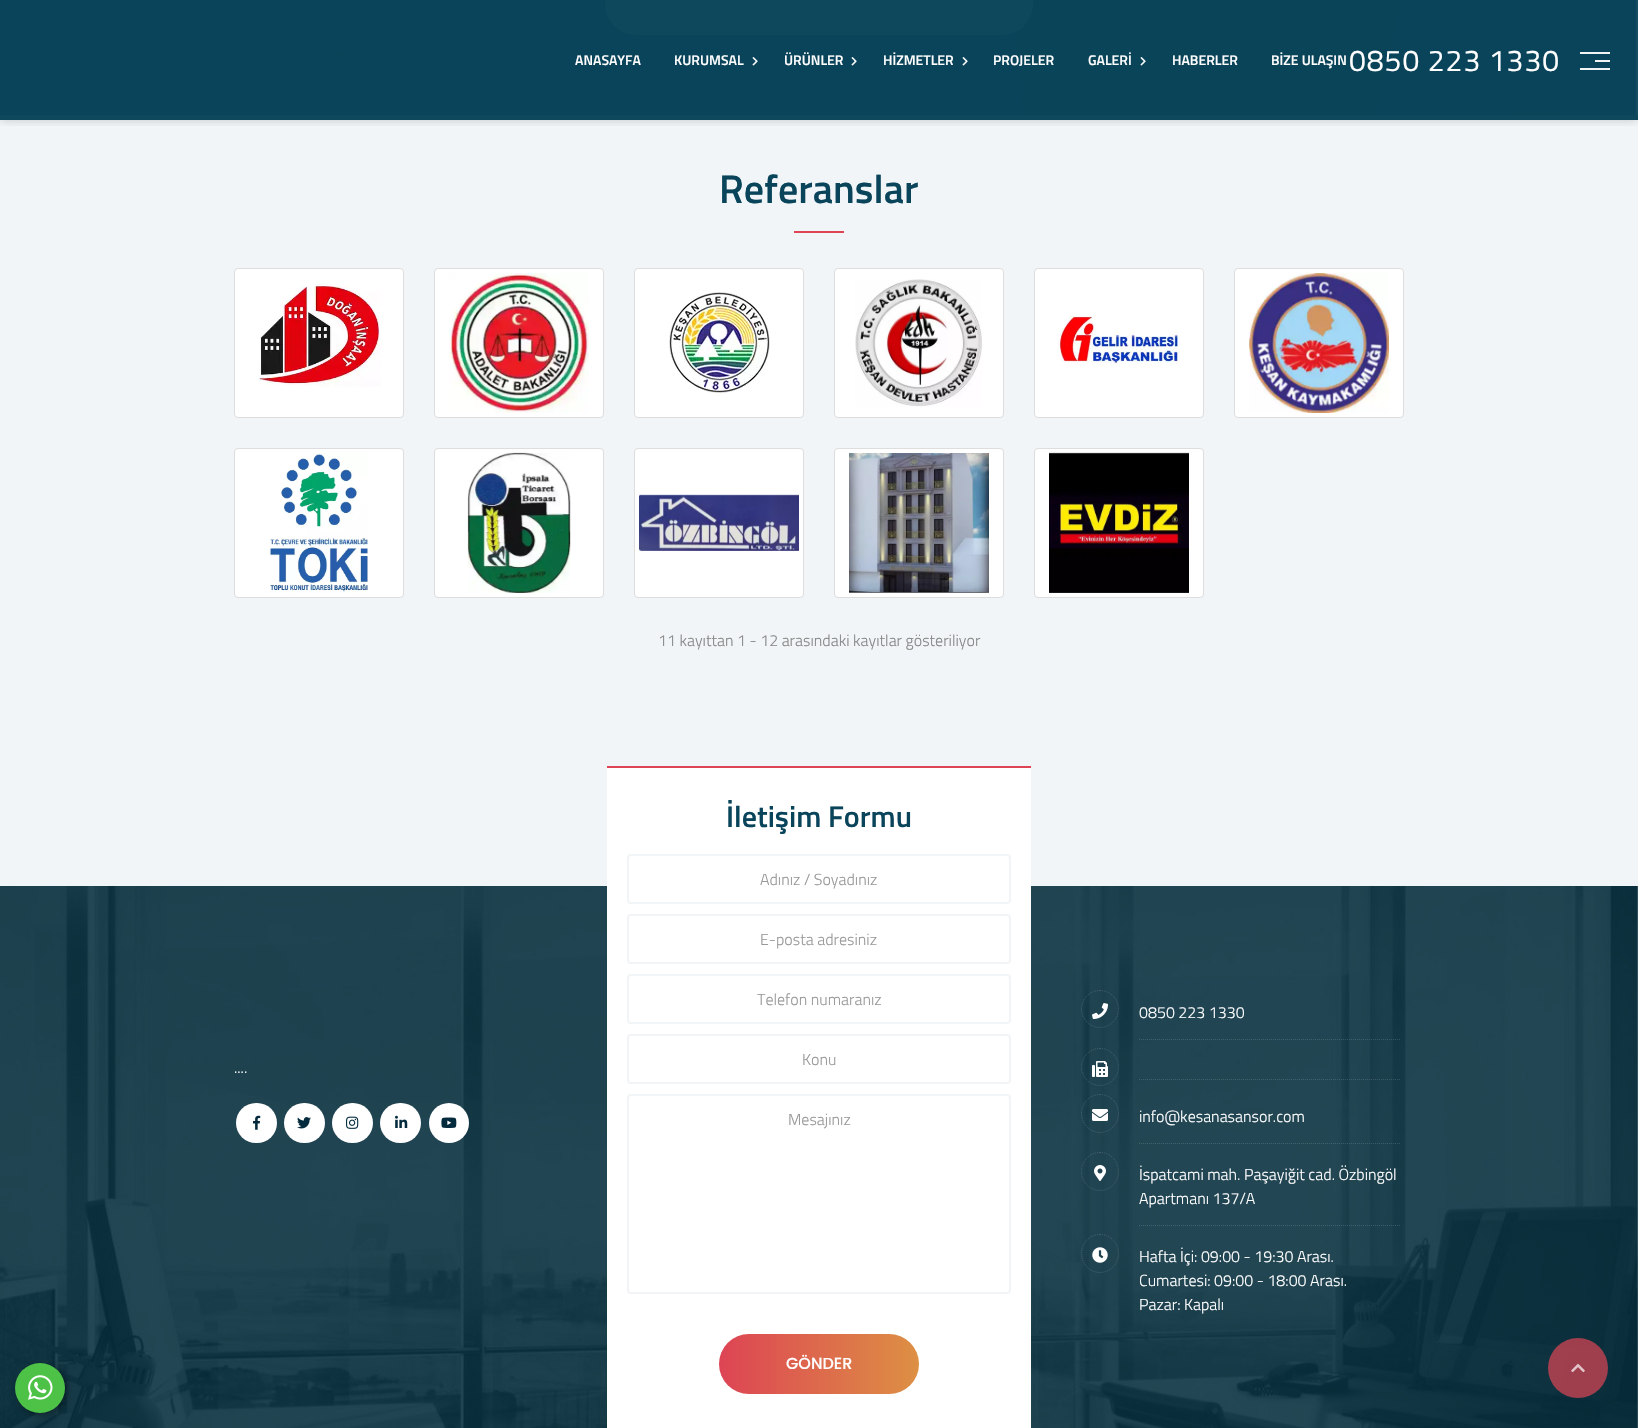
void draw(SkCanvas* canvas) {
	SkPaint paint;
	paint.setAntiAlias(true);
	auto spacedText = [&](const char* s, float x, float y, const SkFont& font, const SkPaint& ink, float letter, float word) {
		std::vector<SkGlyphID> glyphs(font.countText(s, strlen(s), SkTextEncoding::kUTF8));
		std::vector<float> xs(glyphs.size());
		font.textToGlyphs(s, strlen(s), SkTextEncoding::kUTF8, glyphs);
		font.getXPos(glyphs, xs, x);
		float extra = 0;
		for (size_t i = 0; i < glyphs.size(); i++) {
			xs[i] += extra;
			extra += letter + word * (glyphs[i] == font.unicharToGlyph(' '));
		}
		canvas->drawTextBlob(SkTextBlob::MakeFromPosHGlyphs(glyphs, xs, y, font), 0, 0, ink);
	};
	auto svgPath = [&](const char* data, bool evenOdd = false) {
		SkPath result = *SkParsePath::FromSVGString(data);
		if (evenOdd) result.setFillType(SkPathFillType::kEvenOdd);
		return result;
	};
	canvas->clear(0xffffffff);
	canvas->drawImageRect(SkImages::DeferredFromEncodedData(SkData::MakeFromFileName("img17.png")), SkRect::MakeXYWH(0, 886, 1638, 542), SkSamplingOptions());
	paint.setColor(0x66000000);
	paint.setMaskFilter(SkMaskFilter::MakeBlur(kNormal_SkBlurStyle, 3));
	canvas->drawRoundRect(SkRect::MakeXYWH(17, 1365, 50, 50), 25, 25, paint);
	paint.setMaskFilter(nullptr);
	paint.setColor(0xff4dc247);
	canvas->drawCircle(40, 1388, 25, paint);
	canvas->drawImageRect(SkImages::DeferredFromEncodedData(SkData::MakeFromFileName("img1.png")), SkRect::MakeXYWH(28, 1375, 25, 25), SkSamplingOptions());
	canvas->drawImageRect(SkImages::DeferredFromEncodedData(SkData::MakeFromFileName("img2.png")), SkRect::MakeXYWH(0, 0, 1638, 115), SkSamplingOptions());
	paint.setColor(0xff0e485d);
	canvas->drawRoundRect(SkRect::MakeXYWH(605, -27, 428, 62), 31, 31, paint);
	paint.setColor(0xfff2f5f7);
	canvas->drawRect(SkRect::MakeXYWH(0, 120, 1638, 766), paint);
	paint.setColor(0xff0e485d);
	canvas->drawRect(SkRect::MakeXYWH(0, 115, 1638, 5), paint);
	canvas->save();
	canvas->clipRect(SkRect::MakeXYWH(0, 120, 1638, 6));
	paint.setColor(0x33050505);
	paint.setMaskFilter(SkMaskFilter::MakeBlur(kNormal_SkBlurStyle, 5));
	canvas->drawRect(SkRect::MakeXYWH(0, 0, 1638, 120), paint);
	paint.setMaskFilter(nullptr);
	canvas->restore();
	SkFont f1(fontMgr->matchFamilyStyle("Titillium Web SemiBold", SkFontStyle(600, SkFontStyle::kNormal_Width, SkFontStyle::kUpright_Slant)), 14);
	f1.setSubpixel(true);
	paint.setColor(0xffffffff);
	canvas->drawString("ANASAYFA", 575, 65, f1, paint);
	canvas->drawString("KURUMSAL", 674, 65, f1, paint);
	canvas->drawImageRect(SkImages::DeferredFromEncodedData(SkData::MakeFromFileName("img3.png")), SkRect::MakeXYWH(752, 57, 6, 9), SkSamplingOptions());
	canvas->drawString("ÜRÜNLER", 784, 65, f1, paint);
	canvas->drawImageRect(SkImages::DeferredFromEncodedData(SkData::MakeFromFileName("img3.png")), SkRect::MakeXYWH(851, 57, 6, 9), SkSamplingOptions());
	canvas->drawString("HİZMETLER", 883, 65, f1, paint);
	canvas->drawImageRect(SkImages::DeferredFromEncodedData(SkData::MakeFromFileName("img4.png")), SkRect::MakeXYWH(962, 57, 6, 9), SkSamplingOptions());
	canvas->drawString("PROJELER", 993, 65, f1, paint);
	canvas->drawString("GALERİ", 1088, 65, f1, paint);
	canvas->drawImageRect(SkImages::DeferredFromEncodedData(SkData::MakeFromFileName("img5.png")), SkRect::MakeXYWH(1140, 57, 6, 9), SkSamplingOptions());
	canvas->drawString("HABERLER", 1172, 65, f1, paint);
	canvas->drawString("BİZE ULAŞIN", 1271, 65, f1, paint);
	SkFont f2(fontMgr->matchFamilyStyle("Titillium Web", SkFontStyle::Normal()), 30);
	f2.setSubpixel(true);
	spacedText("0850 223 1330", 1349, 71, f2, paint, 1, 0);
	paint.setColor(0xfff2f4f4);
	canvas->drawRect(SkRect::MakeXYWH(1580, 52, 30, 2), paint);
	canvas->drawRect(SkRect::MakeXYWH(1580, 68, 30, 2), paint);
	canvas->drawRect(SkRect::MakeXYWH(1595, 60, 15, 2), paint);
	SkFont f3(fontMgr->matchFamilyStyle("Titillium Web SemiBold", SkFontStyle(600, SkFontStyle::kNormal_Width, SkFontStyle::kUpright_Slant)), 40);
	f3.setSubpixel(true);
	paint.setColor(0xff09445a);
	canvas->drawString("Referanslar", 719, 203, f3, paint);
	paint.setColor(0xffdd4454);
	canvas->drawRect(SkRect::MakeXYWH(794, 231, 50, 2), paint);
	paint.setColor(0xffffffff);
	canvas->drawRoundRect(SkRect::MakeXYWH(234.5, 268.5, 169, 149), 3.5, 3.5, paint);
	paint.setStroke(true);
	paint.setStrokeWidth(1);
	paint.setColor(0xffdddddd);
	canvas->drawRoundRect(SkRect::MakeXYWH(234.5, 268.5, 169, 149), 3.5, 3.5, paint);
	canvas->drawImageRect(SkImages::DeferredFromEncodedData(SkData::MakeFromFileName("img6.png")), SkRect::MakeXYWH(258, 283, 123, 104), SkSamplingOptions());
	paint.setStroke(false);
	paint.setColor(0xffffffff);
	canvas->drawRoundRect(SkRect::MakeXYWH(434.5, 268.5, 169, 149), 3.5, 3.5, paint);
	paint.setStroke(true);
	paint.setColor(0xffdddddd);
	canvas->drawRoundRect(SkRect::MakeXYWH(434.5, 268.5, 169, 149), 3.5, 3.5, paint);
	canvas->drawImageRect(SkImages::DeferredFromEncodedData(SkData::MakeFromFileName("img7.png")), SkRect::MakeXYWH(449, 273, 140, 140), SkSamplingOptions());
	paint.setStroke(false);
	paint.setColor(0xffffffff);
	canvas->drawRoundRect(SkRect::MakeXYWH(634.5, 268.5, 169, 149), 3.5, 3.5, paint);
	paint.setStroke(true);
	paint.setColor(0xffdddddd);
	canvas->drawRoundRect(SkRect::MakeXYWH(634.5, 268.5, 169, 149), 3.5, 3.5, paint);
	canvas->drawImageRect(SkImages::DeferredFromEncodedData(SkData::MakeFromFileName("img8.png")), SkRect::MakeXYWH(669, 292, 101, 102), SkSamplingOptions());
	paint.setStroke(false);
	paint.setColor(0xffffffff);
	canvas->drawRoundRect(SkRect::MakeXYWH(834.5, 268.5, 169, 149), 3.5, 3.5, paint);
	paint.setStroke(true);
	paint.setColor(0xffdddddd);
	canvas->drawRoundRect(SkRect::MakeXYWH(834.5, 268.5, 169, 149), 3.5, 3.5, paint);
	canvas->drawImageRect(SkImages::DeferredFromEncodedData(SkData::MakeFromFileName("img9.png")), SkRect::MakeXYWH(855, 279, 127, 128), SkSamplingOptions());
	paint.setStroke(false);
	paint.setColor(0xffffffff);
	canvas->drawRoundRect(SkRect::MakeXYWH(1034.5, 268.5, 169, 149), 3.5, 3.5, paint);
	paint.setStroke(true);
	paint.setColor(0xffdddddd);
	canvas->drawRoundRect(SkRect::MakeXYWH(1034.5, 268.5, 169, 149), 3.5, 3.5, paint);
	canvas->drawImageRect(SkImages::DeferredFromEncodedData(SkData::MakeFromFileName("img10.png")), SkRect::MakeXYWH(1058, 315, 122, 51), SkSamplingOptions());
	paint.setStroke(false);
	paint.setColor(0xffffffff);
	canvas->drawRoundRect(SkRect::MakeXYWH(1234.5, 268.5, 169, 149), 3.5, 3.5, paint);
	paint.setStroke(true);
	paint.setColor(0xffdddddd);
	canvas->drawRoundRect(SkRect::MakeXYWH(1234.5, 268.5, 169, 149), 3.5, 3.5, paint);
	canvas->drawImageRect(SkImages::DeferredFromEncodedData(SkData::MakeFromFileName("img11.png")), SkRect::MakeXYWH(1249, 273, 140, 140), SkSamplingOptions());
	paint.setStroke(false);
	paint.setColor(0xffffffff);
	canvas->drawRoundRect(SkRect::MakeXYWH(234.5, 448.5, 169, 149), 3.5, 3.5, paint);
	paint.setStroke(true);
	paint.setColor(0xffdddddd);
	canvas->drawRoundRect(SkRect::MakeXYWH(234.5, 448.5, 169, 149), 3.5, 3.5, paint);
	canvas->drawImageRect(SkImages::DeferredFromEncodedData(SkData::MakeFromFileName("img12.png")), SkRect::MakeXYWH(270, 453, 98, 140), SkSamplingOptions());
	paint.setStroke(false);
	paint.setColor(0xffffffff);
	canvas->drawRoundRect(SkRect::MakeXYWH(434.5, 448.5, 169, 149), 3.5, 3.5, paint);
	paint.setStroke(true);
	paint.setColor(0xffdddddd);
	canvas->drawRoundRect(SkRect::MakeXYWH(434.5, 448.5, 169, 149), 3.5, 3.5, paint);
	canvas->drawImageRect(SkImages::DeferredFromEncodedData(SkData::MakeFromFileName("img13.png")), SkRect::MakeXYWH(467, 452, 104, 141), SkSamplingOptions());
	paint.setStroke(false);
	paint.setColor(0xffffffff);
	canvas->drawRoundRect(SkRect::MakeXYWH(634.5, 448.5, 169, 149), 3.5, 3.5, paint);
	paint.setStroke(true);
	paint.setColor(0xffdddddd);
	canvas->drawRoundRect(SkRect::MakeXYWH(634.5, 448.5, 169, 149), 3.5, 3.5, paint);
	canvas->drawImageRect(SkImages::DeferredFromEncodedData(SkData::MakeFromFileName("img14.png")), SkRect::MakeXYWH(639, 494, 160, 57), SkSamplingOptions());
	paint.setStroke(false);
	paint.setColor(0xffffffff);
	canvas->drawRoundRect(SkRect::MakeXYWH(834.5, 448.5, 169, 149), 3.5, 3.5, paint);
	paint.setStroke(true);
	paint.setColor(0xffdddddd);
	canvas->drawRoundRect(SkRect::MakeXYWH(834.5, 448.5, 169, 149), 3.5, 3.5, paint);
	canvas->drawImageRect(SkImages::DeferredFromEncodedData(SkData::MakeFromFileName("img15.png")), SkRect::MakeXYWH(849, 453, 140, 140), SkSamplingOptions());
	paint.setStroke(false);
	paint.setColor(0xffffffff);
	canvas->drawRoundRect(SkRect::MakeXYWH(1034.5, 448.5, 169, 149), 3.5, 3.5, paint);
	paint.setStroke(true);
	paint.setColor(0xffdddddd);
	canvas->drawRoundRect(SkRect::MakeXYWH(1034.5, 448.5, 169, 149), 3.5, 3.5, paint);
	canvas->drawImageRect(SkImages::DeferredFromEncodedData(SkData::MakeFromFileName("img16.png")), SkRect::MakeXYWH(1049, 452, 140, 141), SkSamplingOptions());
	SkFont f4(fontMgr->matchFamilyStyle("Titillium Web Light", SkFontStyle(300, SkFontStyle::kNormal_Width, SkFontStyle::kUpright_Slant)), 16);
	f4.setSubpixel(true);
	paint.setStroke(false);
	paint.setColor(0xff878787);
	canvas->drawString("11 kayıttan 1 - 12 arasındaki kayıtlar gösteriliyor", 658, 646, f4, paint);
	paint.setColor(0xffffffff);
	canvas->drawString("....", 234, 1073, f4, paint);
	canvas->drawRoundRect(SkRect::MakeXYWH(236, 1103, 41, 40), 20, 20, paint);
	canvas->drawImageRect(SkImages::DeferredFromEncodedData(SkData::MakeFromFileName("img18.png")), SkRect::MakeXYWH(253, 1115, 8, 15), SkSamplingOptions());
	canvas->drawRoundRect(SkRect::MakeXYWH(284, 1103, 41, 40), 20, 20, paint);
	canvas->drawImageRect(SkImages::DeferredFromEncodedData(SkData::MakeFromFileName("img19.png")), SkRect::MakeXYWH(297, 1117, 14, 12), SkSamplingOptions());
	canvas->drawRoundRect(SkRect::MakeXYWH(332, 1103, 41, 40), 20, 20, paint);
	canvas->drawImageRect(SkImages::DeferredFromEncodedData(SkData::MakeFromFileName("img20.png")), SkRect::MakeXYWH(346, 1116, 13, 13), SkSamplingOptions());
	canvas->drawRoundRect(SkRect::MakeXYWH(380, 1103, 41, 40), 20, 20, paint);
	canvas->drawImageRect(SkImages::DeferredFromEncodedData(SkData::MakeFromFileName("img21.png")), SkRect::MakeXYWH(395, 1115, 13, 13), SkSamplingOptions());
	canvas->drawCircle(449, 1123, 20, paint);
	canvas->drawImageRect(SkImages::DeferredFromEncodedData(SkData::MakeFromFileName("img22.png")), SkRect::MakeXYWH(441, 1117, 16, 11), SkSamplingOptions());
	canvas->drawRect(SkRect::MakeXYWH(607, 768, 424, 660), paint);
	paint.setColor(0xffdd4454);
	canvas->drawRect(SkRect::MakeXYWH(607, 766, 424, 2), paint);
	SkFont f5(fontMgr->matchFamilyStyle("Titillium Web SemiBold", SkFontStyle(600, SkFontStyle::kNormal_Width, SkFontStyle::kUpright_Slant)), 30);
	f5.setSubpixel(true);
	paint.setColor(0xff09445a);
	canvas->drawString("İletişim Formu", 726, 827, f5, paint);
	paint.setStroke(true);
	paint.setStrokeWidth(2);
	paint.setColor(0xfff2f5f7);
	canvas->drawRoundRect(SkRect::MakeXYWH(628, 855, 382, 48), 3, 3, paint);
	paint.setStroke(false);
	paint.setColor(0xff999999);
	canvas->drawString("Adınız / Soyadınız", 760, 885, f4, paint);
	paint.setStroke(true);
	paint.setColor(0xfff2f5f7);
	canvas->drawRoundRect(SkRect::MakeXYWH(628, 915, 382, 48), 3, 3, paint);
	paint.setStroke(false);
	paint.setColor(0xff999999);
	canvas->drawString("E-posta adresiniz", 760, 945, f4, paint);
	paint.setStroke(true);
	paint.setColor(0xfff2f5f7);
	canvas->drawRoundRect(SkRect::MakeXYWH(628, 975, 382, 48), 3, 3, paint);
	paint.setStroke(false);
	paint.setColor(0xff999999);
	canvas->drawString("Telefon numaranız", 757, 1005, f4, paint);
	paint.setStroke(true);
	paint.setColor(0xfff2f5f7);
	canvas->drawRoundRect(SkRect::MakeXYWH(628, 1035, 382, 48), 3, 3, paint);
	paint.setStroke(false);
	paint.setColor(0xff999999);
	canvas->drawString("Konu", 802, 1065, f4, paint);
	paint.setStroke(true);
	paint.setColor(0xfff2f5f7);
	canvas->drawRoundRect(SkRect::MakeXYWH(628, 1095, 382, 198), 3, 3, paint);
	paint.setStroke(false);
	paint.setColor(0xff999999);
	canvas->drawString("Mesajınız", 788, 1125, f4, paint);
	{
		const SkColor colors[] = {0xffdd4454, 0xffdd9044, 0xffdd4454};
		const float stops[] = {0, 0.5, 1};
		const SkPoint ends[] = {{719, 1364}, {1119, 1364}};
		paint.setShader(SkGradientShader::MakeLinear(ends, colors, stops, 3, SkTileMode::kClamp));
		paint.setAlpha(255);
	}
	canvas->drawRoundRect(SkRect::MakeXYWH(719, 1334, 200, 60), 30, 30, paint);
	SkFont f6(fontMgr->matchFamilyStyle("Poppins", SkFontStyle(500, SkFontStyle::kNormal_Width, SkFontStyle::kUpright_Slant)), 16);
	f6.setSubpixel(true);
	paint.setShader(nullptr);
	paint.setColor(0xffffffff);
	canvas->drawString("GÖNDER", 786, 1369, f6, paint);
	paint.setStroke(true);
	paint.setStrokeWidth(1);
	paint.setColor(0x26ffffff);
	paint.setPathEffect(SkDashPathEffect::Make({{1, 1}}, 0));
	canvas->drawPath(svgPath("M1100 990.5C1110 990.5 1118.5 999 1118.5 1009C1118.5 1019 1110 1027.5 1100 1027.5C1090 1027.5 1081.5 1019 1081.5 1009C1081.5 999 1090 990.5 1100 990.5Z"), paint);
	paint.setPathEffect(nullptr);
	canvas->drawImageRect(SkImages::DeferredFromEncodedData(SkData::MakeFromFileName("img23.png")), SkRect::MakeXYWH(1092, 1003, 16, 16), SkSamplingOptions());
	paint.setPathEffect(SkDashPathEffect::Make({{1, 1}}, 0));
	canvas->drawPath(svgPath("M1139 1039.5H1400"), paint);
	paint.setPathEffect(nullptr);
	paint.setStroke(false);
	paint.setColor(0xffffffff);
	canvas->drawString("0850 223 1330", 1139, 1018, f4, paint);
	paint.setStroke(true);
	paint.setColor(0x26ffffff);
	paint.setPathEffect(SkDashPathEffect::Make({{1, 1}}, 0));
	canvas->drawPath(svgPath("M1100 1048.5C1110 1048.5 1118.5 1057 1118.5 1067C1118.5 1077 1110 1085.5 1100 1085.5C1090 1085.5 1081.5 1077 1081.5 1067C1081.5 1057 1090 1048.5 1100 1048.5Z"), paint);
	paint.setPathEffect(nullptr);
	canvas->drawImageRect(SkImages::DeferredFromEncodedData(SkData::MakeFromFileName("img24.png")), SkRect::MakeXYWH(1092, 1061, 16, 16), SkSamplingOptions());
	paint.setPathEffect(SkDashPathEffect::Make({{1, 1}}, 0));
	canvas->drawPath(svgPath("M1139 1079.5H1400"), paint);
	paint.setPathEffect(nullptr);
	paint.setPathEffect(SkDashPathEffect::Make({{1, 1}}, 0));
	canvas->drawPath(svgPath("M1100 1094.5C1110 1094.5 1118.5 1103 1118.5 1113.5C1118.5 1124 1110 1132.5 1100 1132.5C1090 1132.5 1081.5 1124 1081.5 1113.5C1081.5 1103 1090 1094.5 1100 1094.5Z"), paint);
	paint.setPathEffect(nullptr);
	canvas->drawImageRect(SkImages::DeferredFromEncodedData(SkData::MakeFromFileName("img25.png")), SkRect::MakeXYWH(1092, 1109, 16, 12), SkSamplingOptions());
	paint.setPathEffect(SkDashPathEffect::Make({{1, 1}}, 0));
	canvas->drawPath(svgPath("M1139 1143.5H1400"), paint);
	paint.setPathEffect(nullptr);
	paint.setStroke(false);
	paint.setColor(0xffffffff);
	canvas->drawString("info@kesanasansor.com", 1139, 1122, f4, paint);
	paint.setStroke(true);
	paint.setColor(0x26ffffff);
	paint.setPathEffect(SkDashPathEffect::Make({{1, 1}}, 0));
	canvas->drawPath(svgPath("M1100 1152.5C1110 1152.5 1118.5 1161 1118.5 1171.5C1118.5 1182 1110 1190.5 1100 1190.5C1090 1190.5 1081.5 1182 1081.5 1171.5C1081.5 1161 1090 1152.5 1100 1152.5Z"), paint);
	paint.setPathEffect(nullptr);
	canvas->drawImageRect(SkImages::DeferredFromEncodedData(SkData::MakeFromFileName("img26.png")), SkRect::MakeXYWH(1094, 1165, 12, 16), SkSamplingOptions());
	paint.setPathEffect(SkDashPathEffect::Make({{1, 1}}, 0));
	canvas->drawPath(svgPath("M1139 1225.5H1400"), paint);
	paint.setPathEffect(nullptr);
	paint.setStroke(false);
	paint.setColor(0xffffffff);
	canvas->drawString("İspatcami mah. Paşayiğit cad. Özbingöl", 1139, 1180, f4, paint);
	canvas->drawString("Apartmanı 137/A", 1139, 1204, f4, paint);
	paint.setStroke(true);
	paint.setColor(0x26ffffff);
	paint.setPathEffect(SkDashPathEffect::Make({{1, 1}}, 0));
	canvas->drawPath(svgPath("M1100 1234.5C1110 1234.5 1118.5 1243 1118.5 1253.5C1118.5 1264 1110 1272.5 1100 1272.5C1090 1272.5 1081.5 1264 1081.5 1253.5C1081.5 1243 1090 1234.5 1100 1234.5Z"), paint);
	paint.setPathEffect(nullptr);
	canvas->drawImageRect(SkImages::DeferredFromEncodedData(SkData::MakeFromFileName("img27.png")), SkRect::MakeXYWH(1092, 1247, 16, 16), SkSamplingOptions());
	paint.setStroke(false);
	paint.setColor(0xffffffff);
	canvas->drawString("Hafta İçi: 09:00 - 19:30 Arası.", 1139, 1262, f4, paint);
	canvas->drawString("Cumartesi: 09:00 - 18:00 Arası.", 1139, 1286, f4, paint);
	canvas->drawString("Pazar: Kapalı", 1139, 1310, f4, paint);
	paint.setColor(0xb3dd4454);
	canvas->drawCircle(1578, 1368, 30, paint);
	canvas->drawImageRect(SkImages::DeferredFromEncodedData(SkData::MakeFromFileName("img28.png")), SkRect::MakeXYWH(1571, 1364, 14, 9), SkSamplingOptions());
}
